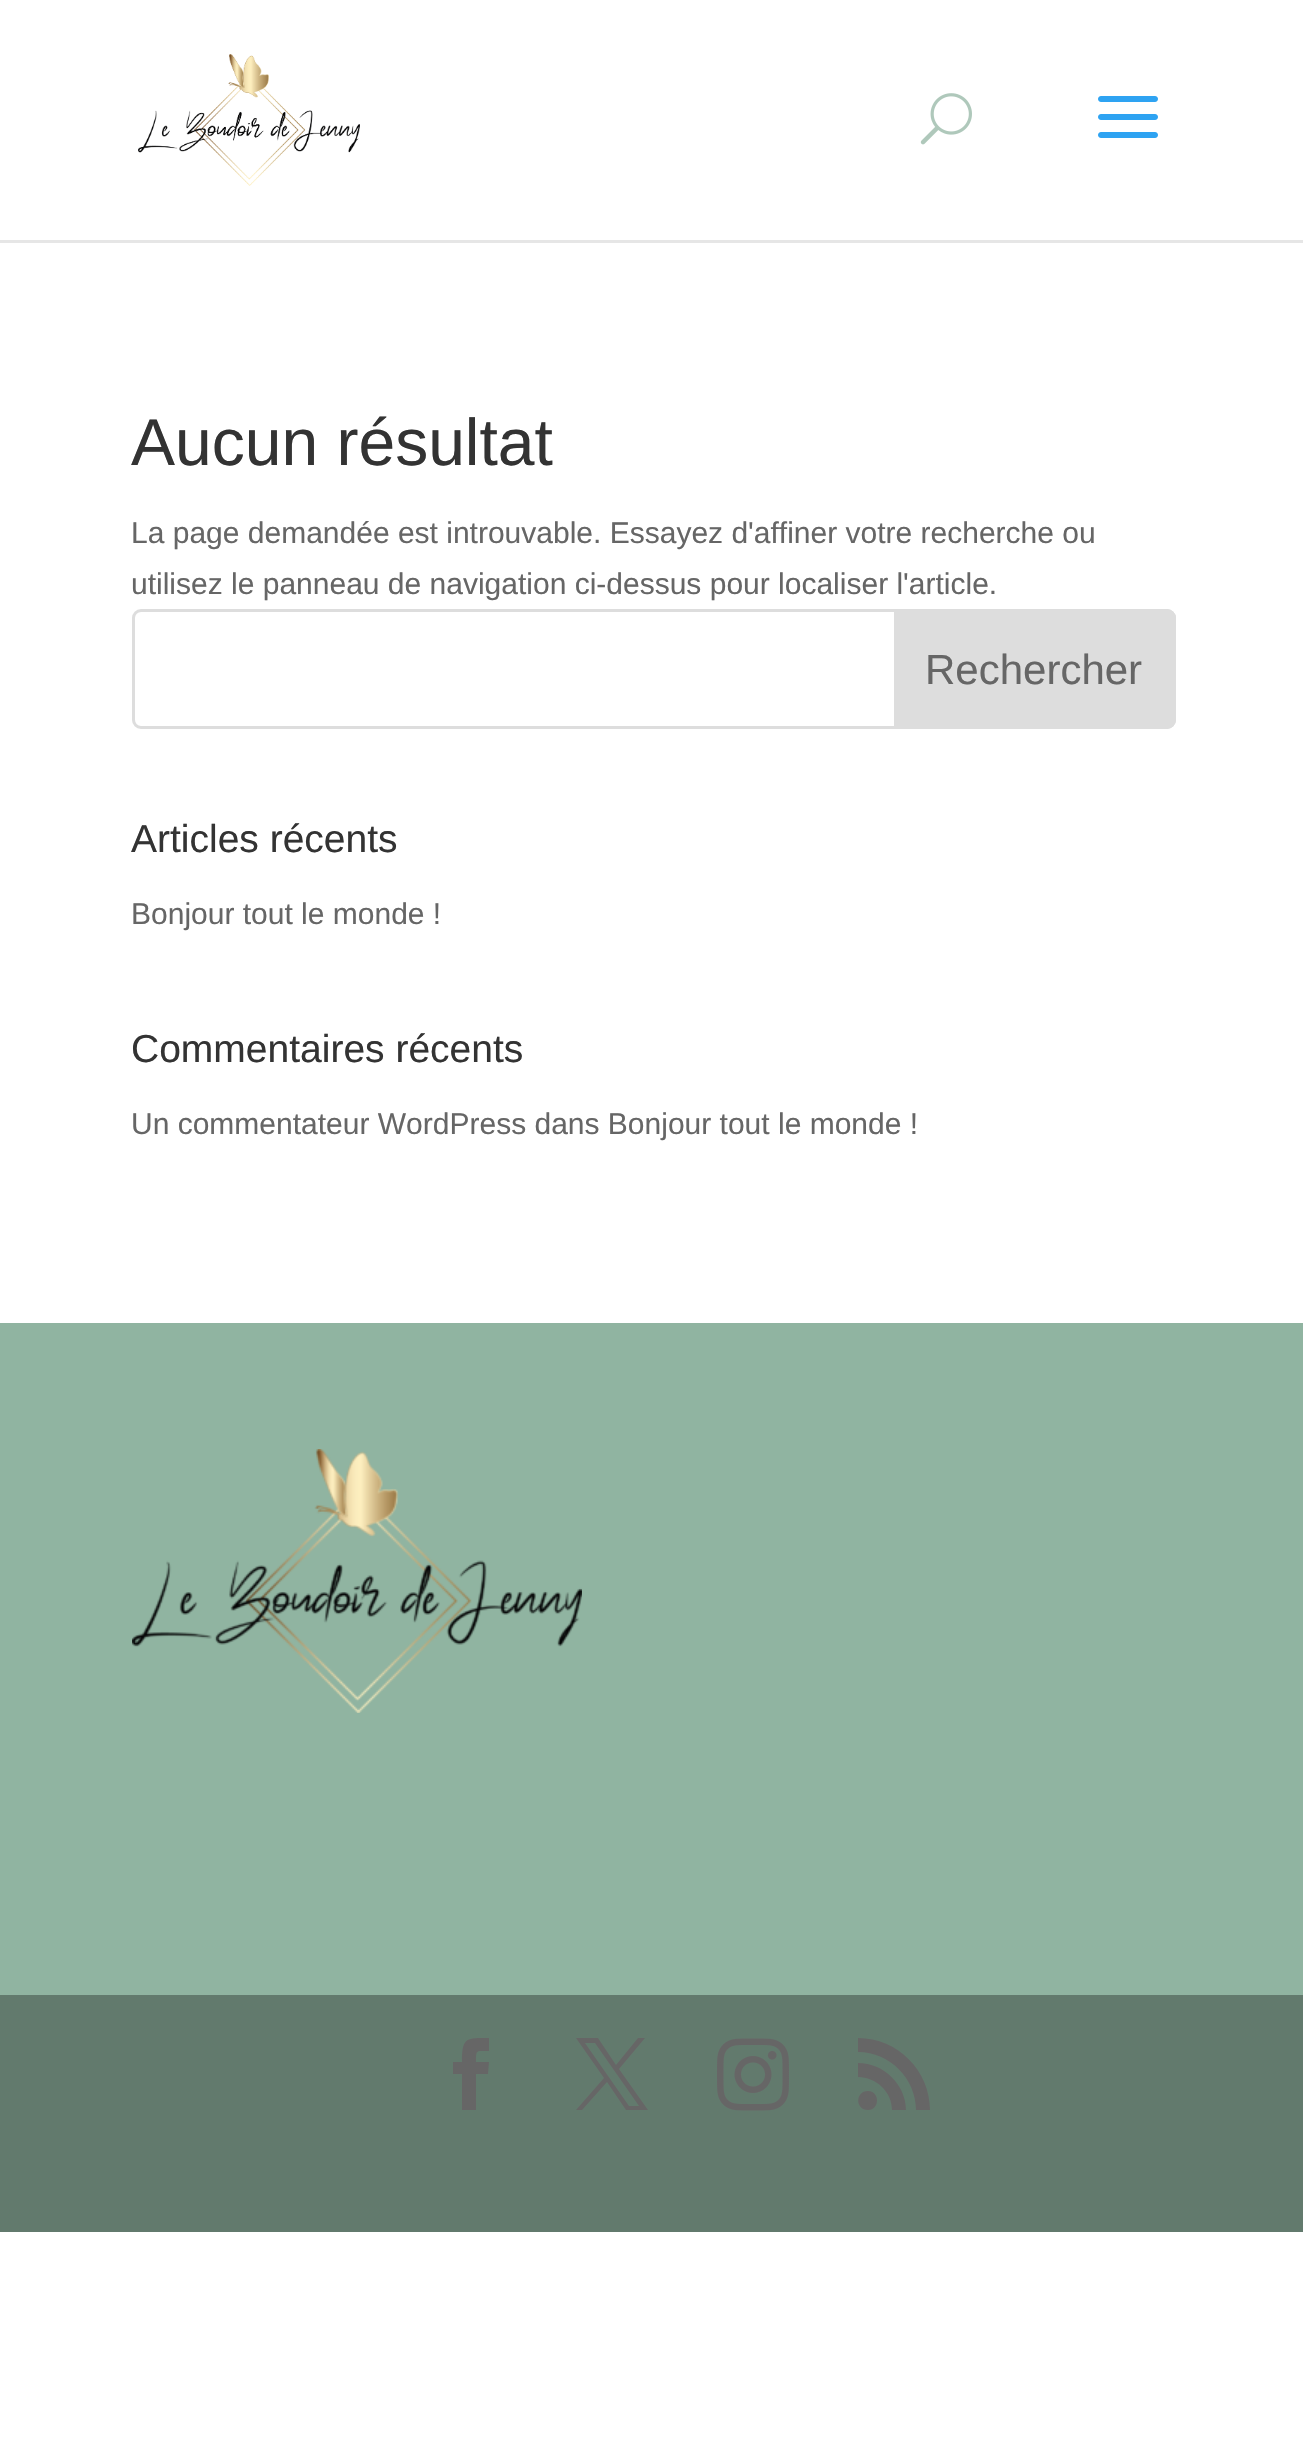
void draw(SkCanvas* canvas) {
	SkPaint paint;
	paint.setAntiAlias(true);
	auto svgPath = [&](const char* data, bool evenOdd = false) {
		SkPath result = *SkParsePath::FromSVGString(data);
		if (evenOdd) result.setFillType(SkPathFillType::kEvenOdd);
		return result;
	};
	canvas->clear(0xffffffff);
	paint.setColor(0xffe6e6e6);
	canvas->drawRect(SkRect::MakeXYWH(0, 240, 1303, 3), paint);
	canvas->drawImageRect(SkImages::DeferredFromEncodedData(SkData::MakeFromFileName("img1.png")), SkRect::MakeXYWH(138, 54, 222, 132), SkSamplingOptions());
	canvas->drawImageRect(SkImages::DeferredFromEncodedData(SkData::MakeFromFileName("img2.png")), SkRect::MakeXYWH(920, 93, 52, 52), SkSamplingOptions());
	canvas->drawImageRect(SkImages::DeferredFromEncodedData(SkData::MakeFromFileName("img3.png")), SkRect::MakeXYWH(1098, 96, 60, 42), SkSamplingOptions());
	SkFont f1(fontMgr->matchFamilyStyle("Liberation Sans", SkFontStyle::Normal()), 66);
	f1.setSubpixel(true);
	paint.setColor(0xff333333);
	canvas->drawString("Aucun résultat", 131, 465, f1, paint);
	SkFont f2(fontMgr->matchFamilyStyle("Liberation Sans", SkFontStyle::Normal()), 30);
	f2.setSubpixel(true);
	paint.setColor(0xff666666);
	canvas->drawString("La page demandée est introuvable. Essayez d'affiner votre recherche ou", 131, 543, f2, paint);
	canvas->drawString("utilisez le panneau de navigation ci-dessus pour localiser l'article.", 131, 594, f2, paint);
	paint.setStroke(true);
	paint.setStrokeWidth(3);
	paint.setColor(0xffdddddd);
	canvas->drawRoundRect(SkRect::MakeXYWH(133.5, 610.5, 1041, 117), 7.5, 7.5, paint);
	paint.setStroke(false);
	canvas->drawPath(svgPath("M895.5 610.5H1167C1171 610.5 1174.5 614 1174.5 618V720C1174.5 724 1171 727.5 1167 727.5H895.5Z"), paint);
	paint.setStroke(true);
	canvas->drawPath(svgPath("M895.5 610.5H1167C1171 610.5 1174.5 614 1174.5 618V720C1174.5 724 1171 727.5 1167 727.5H895.5Z"), paint);
	SkFont f3(fontMgr->matchFamilyStyle("Liberation Sans", SkFontStyle::Normal()), 42);
	f3.setSubpixel(true);
	paint.setStroke(false);
	paint.setColor(0xff666666);
	canvas->drawString("Rechercher", 925, 684, f3, paint);
	SkFont f4(fontMgr->matchFamilyStyle("Liberation Sans", SkFontStyle::Normal()), 39);
	f4.setSubpixel(true);
	paint.setColor(0xff333333);
	canvas->drawString("Articles récents", 131, 852, f4, paint);
	paint.setColor(0xff666666);
	canvas->drawString("Bonjour tout le monde !", 131, 924, f2, paint);
	paint.setColor(0xff333333);
	canvas->drawString("Commentaires récents", 131, 1062, f4, paint);
	paint.setColor(0xff666666);
	canvas->drawString("Un commentateur WordPress dans Bonjour tout le monde !", 131, 1134, f2, paint);
	paint.setColor(0xff90b4a1);
	canvas->drawRect(SkRect::MakeXYWH(0, 1323, 1303, 672), paint);
	canvas->drawImageRect(SkImages::DeferredFromEncodedData(SkData::MakeFromFileName("img4.png")), SkRect::MakeXYWH(132, 1449, 450, 264), SkSamplingOptions());
	paint.setColor(0xff627a6d);
	canvas->drawRect(SkRect::MakeXYWH(0, 1995, 1303, 237), paint);
	paint.setColor(0xff666666);
	canvas->drawPath(svgPath("M462 2110H476V2074H488L489 2062H476C476 2049 476 2051 489 2051V2038C466 2038 462 2037 462 2062H453V2074H462Z"), paint);
	canvas->drawPath(svgPath("M576 2038L604 2078L576 2110H582L607 2082L626 2110H648L619 2069L645 2038H638L616 2065L598 2038ZM585 2043H595L639 2106H629Z"), paint);
	canvas->drawImageRect(SkImages::DeferredFromEncodedData(SkData::MakeFromFileName("img5.png")), SkRect::MakeXYWH(717, 2038, 72, 73), SkSamplingOptions());
	canvas->drawPath(svgPath("M858 2038V2052C890 2052 916 2079 916 2110H930C930 2071 898 2038 858 2038ZM892 2110H906C906 2085 884 2063 858 2063V2077C876 2077 892 2092 892 2110ZM868 2110C880 2110 880 2091 868 2091C855 2091 855 2110 868 2110Z"), paint);
}
